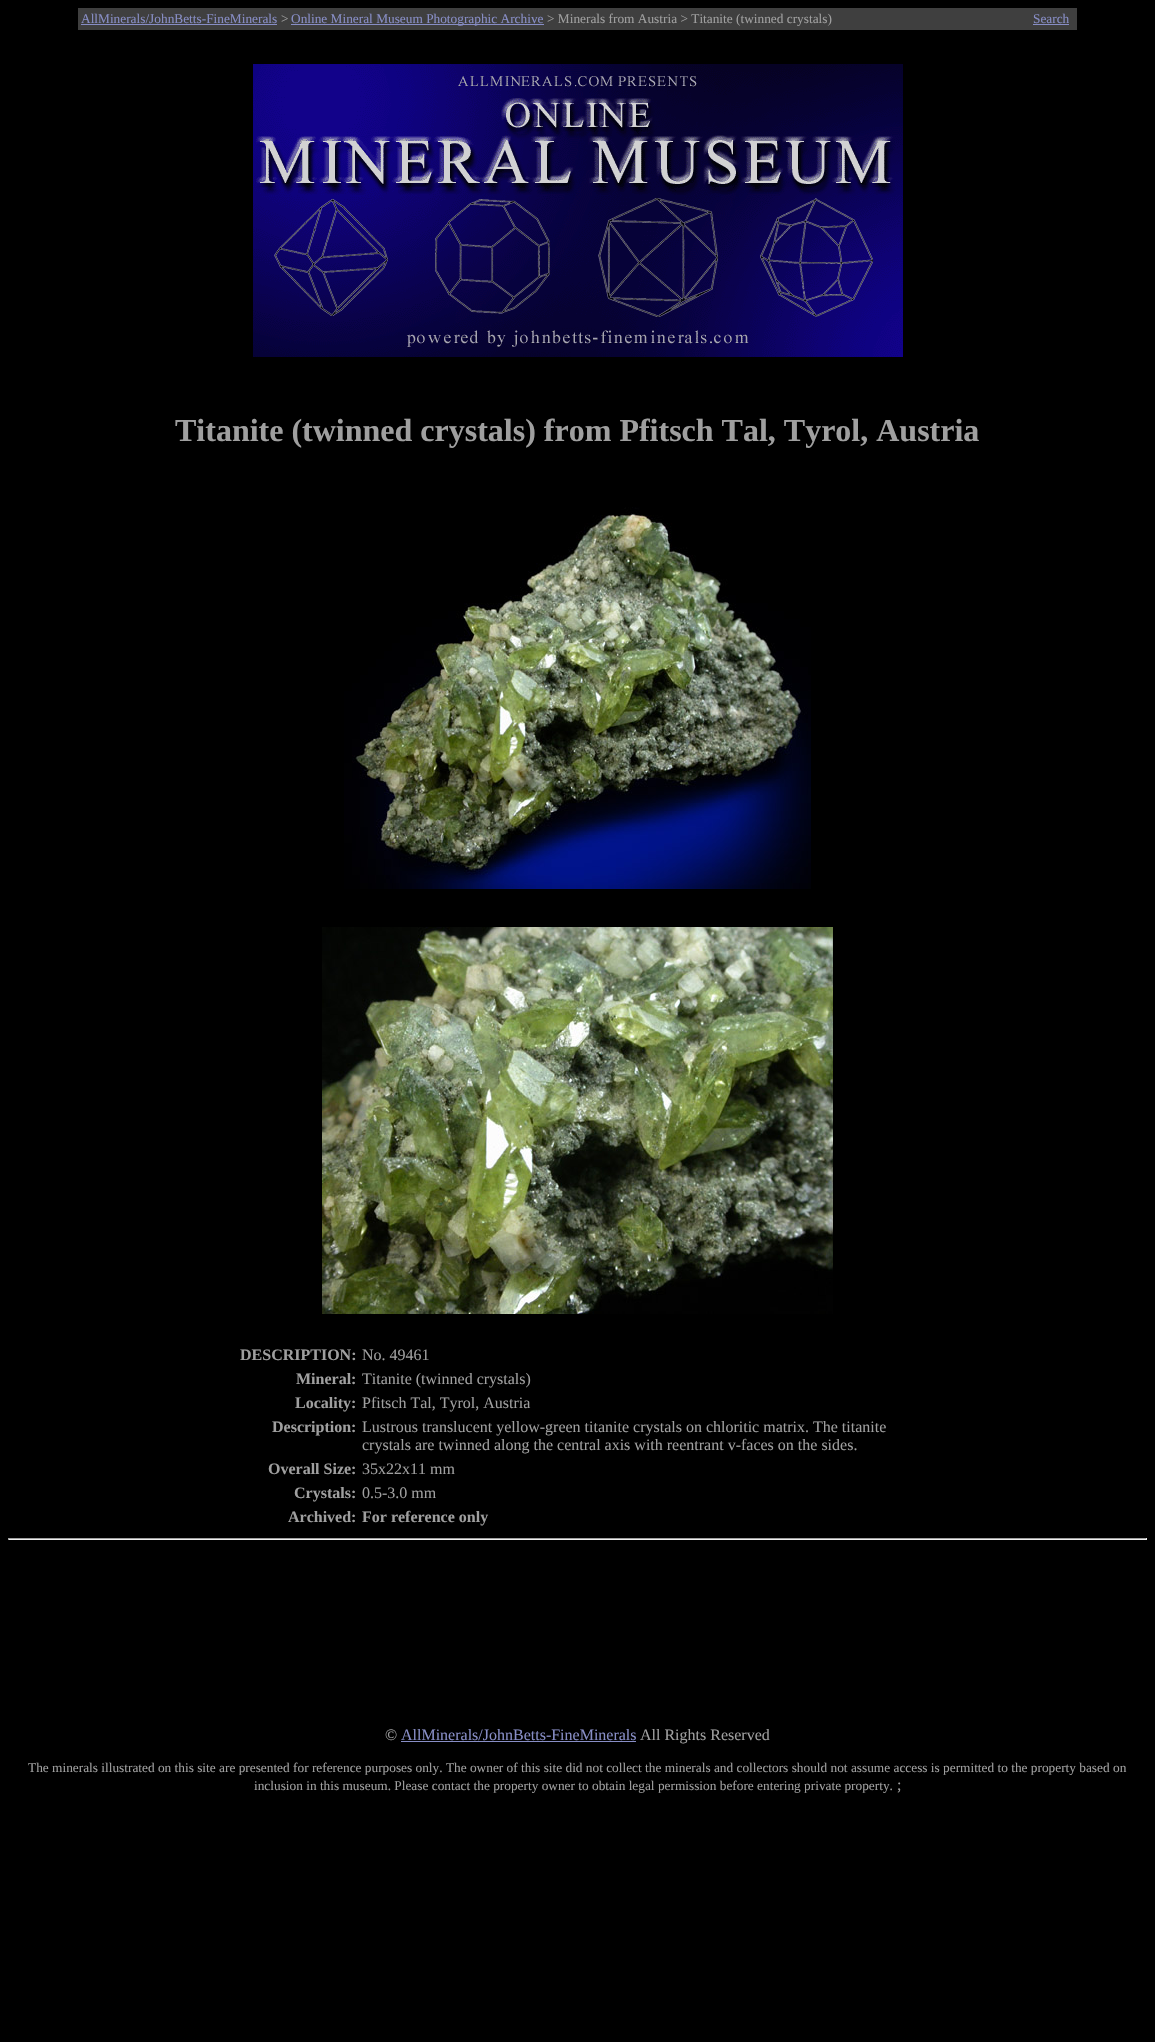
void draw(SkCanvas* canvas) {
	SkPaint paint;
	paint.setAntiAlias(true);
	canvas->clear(0xff000000);
	paint.setColor(0xff3f3f3f);
	canvas->drawRect(SkRect::MakeXYWH(78, 8, 999, 22), paint);
	SkFont f1(fontMgr->matchFamilyStyle("Liberation Serif", SkFontStyle::Normal()), 13.33);
	f1.setSubpixel(true);
	paint.setColor(0xff878dc5);
	canvas->drawString("AllMinerals/JohnBetts-FineMinerals", 81, 23, f1, paint);
	canvas->drawRect(SkRect::MakeXYWH(81, 24, 196, 1), paint);
	paint.setColor(0xff9f9f9f);
	canvas->drawString(">", 281, 23, f1, paint);
	paint.setColor(0xff878dc5);
	canvas->drawRect(SkRect::MakeXYWH(291, 24, 253, 1), paint);
	canvas->drawString("Online Mineral Museum Photographic Archive", 291, 23, f1, paint);
	paint.setColor(0xff9f9f9f);
	canvas->drawString("> Minerals from Austria > Titanite (twinned crystals)", 547, 23, f1, paint);
	paint.setColor(0xff878dc5);
	canvas->drawString("Search", 1033, 23, f1, paint);
	canvas->drawRect(SkRect::MakeXYWH(1033, 24, 36, 1), paint);
	canvas->drawImageRect(SkImages::DeferredFromEncodedData(SkData::MakeFromFileName("img1.png")), SkRect::MakeXYWH(253, 64, 650, 293), SkSamplingOptions());
	SkFont f2(fontMgr->matchFamilyStyle("Liberation Serif", SkFontStyle::Bold()), 32);
	f2.setSubpixel(true);
	paint.setColor(0xff9f9f9f);
	canvas->drawString("Titanite (twinned crystals) from Pfitsch Tal, Tyrol, Austria", 175, 441, f2, paint);
	canvas->drawImageRect(SkImages::DeferredFromEncodedData(SkData::MakeFromFileName("img2.png")), SkRect::MakeXYWH(344, 507, 467, 382), SkSamplingOptions());
	canvas->drawImageRect(SkImages::DeferredFromEncodedData(SkData::MakeFromFileName("img3.png")), SkRect::MakeXYWH(322, 927, 511, 387), SkSamplingOptions());
	SkFont f3(fontMgr->matchFamilyStyle("Liberation Serif", SkFontStyle::Bold()), 16);
	f3.setSubpixel(true);
	canvas->drawString("DESCRIPTION:", 240, 1360, f3, paint);
	SkFont f4(fontMgr->matchFamilyStyle("Liberation Serif", SkFontStyle::Normal()), 16);
	f4.setSubpixel(true);
	canvas->drawString("No. 49461", 362, 1360, f4, paint);
	canvas->drawString("Mineral:", 296, 1384, f3, paint);
	canvas->drawString("Titanite (twinned crystals)", 362, 1384, f4, paint);
	canvas->drawString("Locality:", 295, 1408, f3, paint);
	canvas->drawString("Pfitsch Tal, Tyrol, Austria", 362, 1408, f4, paint);
	canvas->drawString("Description:", 272, 1432, f3, paint);
	canvas->drawString("Lustrous translucent yellow-green titanite crystals on chloritic matrix. The titanite", 362, 1432, f4, paint);
	canvas->drawString("crystals are twinned along the central axis with reentrant v-faces on the sides.", 362, 1450, f4, paint);
	canvas->drawString("Overall Size:", 268, 1474, f3, paint);
	canvas->drawString("35x22x11 mm", 362, 1474, f4, paint);
	canvas->drawString("Crystals:", 294, 1498, f3, paint);
	canvas->drawString("0.5-3.0 mm", 362, 1498, f4, paint);
	canvas->drawString("Archived:", 288, 1522, f3, paint);
	canvas->drawString("For reference only", 362, 1522, f3, paint);
	canvas->drawRect(SkRect::MakeXYWH(8, 1538, 1139, 1), paint);
	paint.setColor(0xffeeeeee);
	canvas->drawRect(SkRect::MakeXYWH(1146, 1538, 1, 2), paint);
	canvas->drawRect(SkRect::MakeXYWH(8, 1539, 1139, 1), paint);
	paint.setColor(0xff9f9f9f);
	canvas->drawRect(SkRect::MakeXYWH(8, 1538, 1, 2), paint);
	canvas->drawString("©", 385, 1740, f4, paint);
	paint.setColor(0xff878dc5);
	canvas->drawString("AllMinerals/JohnBetts-FineMinerals", 401, 1740, f4, paint);
	canvas->drawRect(SkRect::MakeXYWH(401, 1741, 235, 1), paint);
	paint.setColor(0xff9f9f9f);
	canvas->drawString("All Rights Reserved", 640, 1740, f4, paint);
	canvas->drawString("The minerals illustrated on this site are presented for reference purposes only. The owner of this site did not collect the minerals and collectors should not assume access is permitted to the property based on", 28, 1772, f1, paint);
	canvas->drawString("inclusion in this museum. Please contact the property owner to obtain legal permission before entering private property.", 254, 1790, f1, paint);
	canvas->drawString(";", 897, 1790, f4, paint);
}
